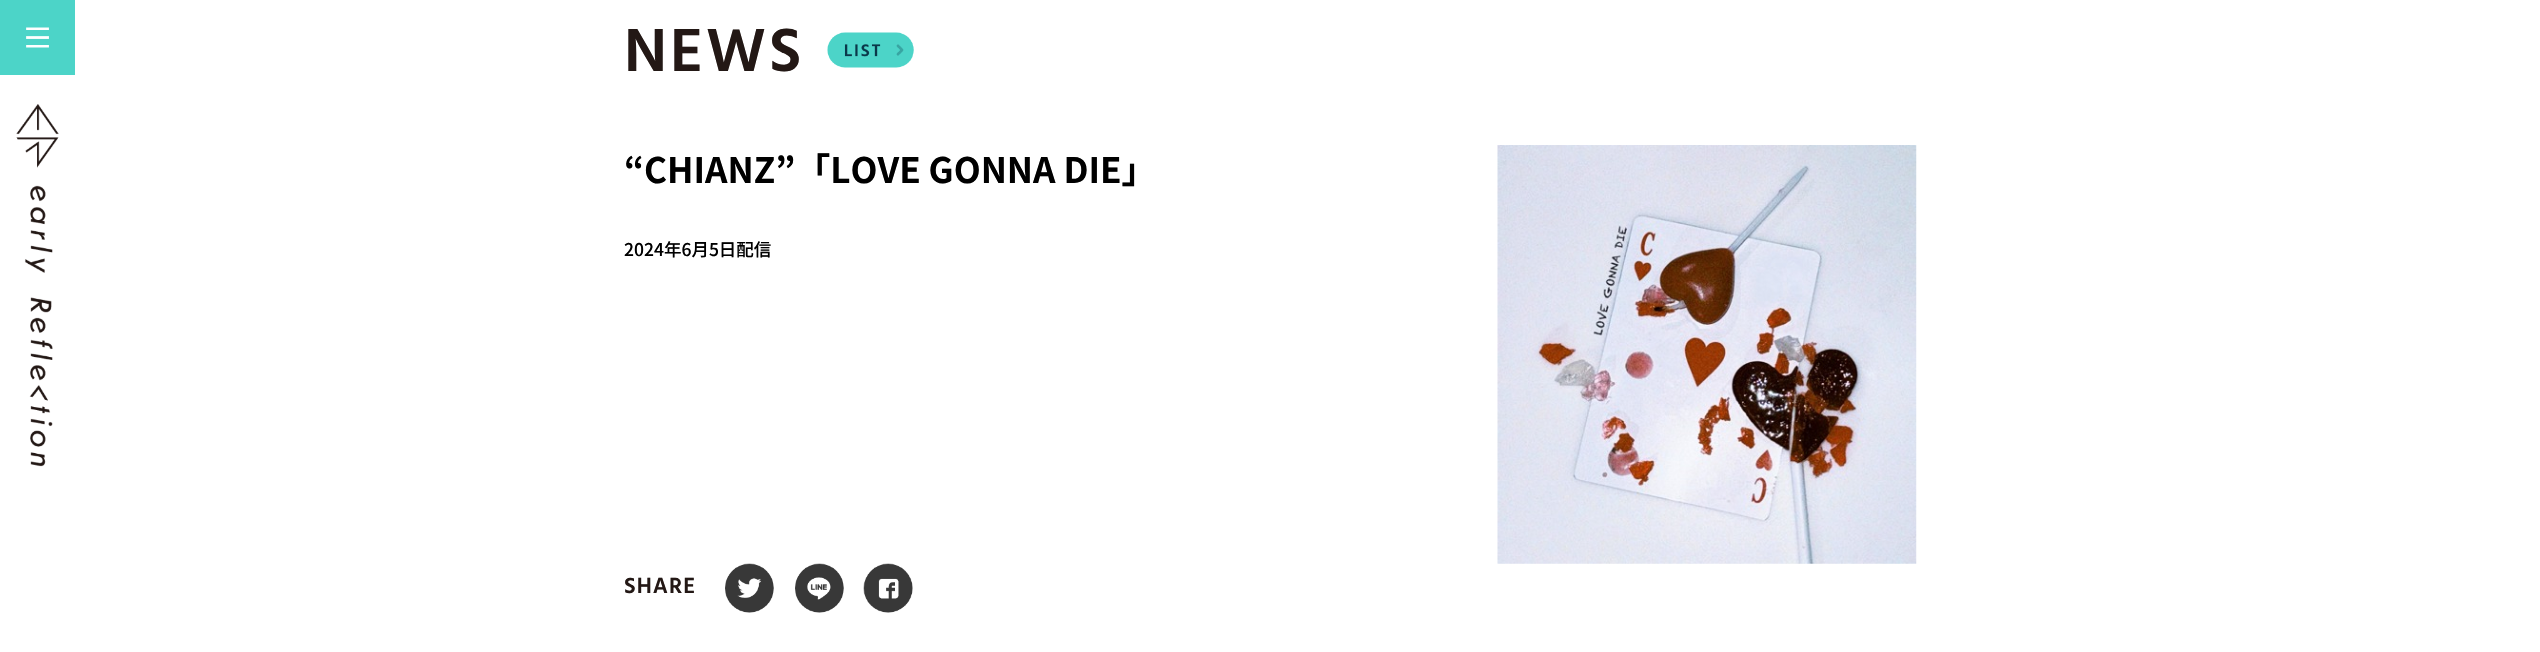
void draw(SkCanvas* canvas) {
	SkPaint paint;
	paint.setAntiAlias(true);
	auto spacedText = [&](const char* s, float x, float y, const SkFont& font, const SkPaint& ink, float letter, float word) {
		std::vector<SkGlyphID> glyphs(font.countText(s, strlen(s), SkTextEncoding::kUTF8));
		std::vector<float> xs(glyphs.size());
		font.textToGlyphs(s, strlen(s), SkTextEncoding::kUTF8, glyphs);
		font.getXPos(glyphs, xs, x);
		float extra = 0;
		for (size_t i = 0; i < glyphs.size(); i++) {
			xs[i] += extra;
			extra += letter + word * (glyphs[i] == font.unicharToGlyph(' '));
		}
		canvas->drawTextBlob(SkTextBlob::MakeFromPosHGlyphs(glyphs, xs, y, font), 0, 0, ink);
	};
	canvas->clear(0xffffffff);
	canvas->drawImageRect(SkImages::DeferredFromEncodedData(SkData::MakeFromFileName("img1.png")), SkRect::MakeXYWH(0, 0, 75, 75), SkSamplingOptions());
	canvas->drawImageRect(SkImages::DeferredFromEncodedData(SkData::MakeFromFileName("img2.png")), SkRect::MakeXYWH(16, 104, 43, 363), SkSamplingOptions());
	SkFont f1(fontMgr->matchFamilyStyle("Hind", SkFontStyle(600, SkFontStyle::kNormal_Width, SkFontStyle::kUpright_Slant)), 62.5);
	f1.setSubpixel(true);
	paint.setColor(0xff231815);
	spacedText("NEWS", 624, 71, f1, paint, 3, 0);
	canvas->drawImageRect(SkImages::DeferredFromEncodedData(SkData::MakeFromFileName("img3.png")), SkRect::MakeXYWH(827, 32, 87, 36), SkSamplingOptions());
	SkFont f2(fontMgr->matchFamilyStyle("Noto Sans JP", SkFontStyle::Bold()), 35);
	f2.setSubpixel(true);
	paint.setColor(0xff000000);
	canvas->drawString("“CHIANZ”「LOVE GONNA DIE」", 624, 183, f2, paint);
	SkFont f3(fontMgr->matchFamilyStyle("Noto Sans JP", SkFontStyle(500, SkFontStyle::kNormal_Width, SkFontStyle::kUpright_Slant)), 17.5);
	f3.setSubpixel(true);
	canvas->drawString("2024年6月5日配信", 624, 256, f3, paint);
	canvas->drawImageRect(SkImages::DeferredFromEncodedData(SkData::MakeFromFileName("img4.png")), SkRect::MakeXYWH(1497, 145, 420, 419), SkSamplingOptions());
	SkFont f4(fontMgr->matchFamilyStyle("Hind", SkFontStyle(600, SkFontStyle::kNormal_Width, SkFontStyle::kUpright_Slant)), 22.5);
	f4.setSubpixel(true);
	paint.setColor(0xff231815);
	spacedText("SHARE", 624, 593, f4, paint, 1, 0);
	canvas->drawImageRect(SkImages::DeferredFromEncodedData(SkData::MakeFromFileName("img5.png")), SkRect::MakeXYWH(725, 563, 49, 50), SkSamplingOptions());
	canvas->drawImageRect(SkImages::DeferredFromEncodedData(SkData::MakeFromFileName("img6.png")), SkRect::MakeXYWH(795, 563, 49, 50), SkSamplingOptions());
	canvas->drawImageRect(SkImages::DeferredFromEncodedData(SkData::MakeFromFileName("img7.png")), SkRect::MakeXYWH(863, 563, 50, 50), SkSamplingOptions());
}
